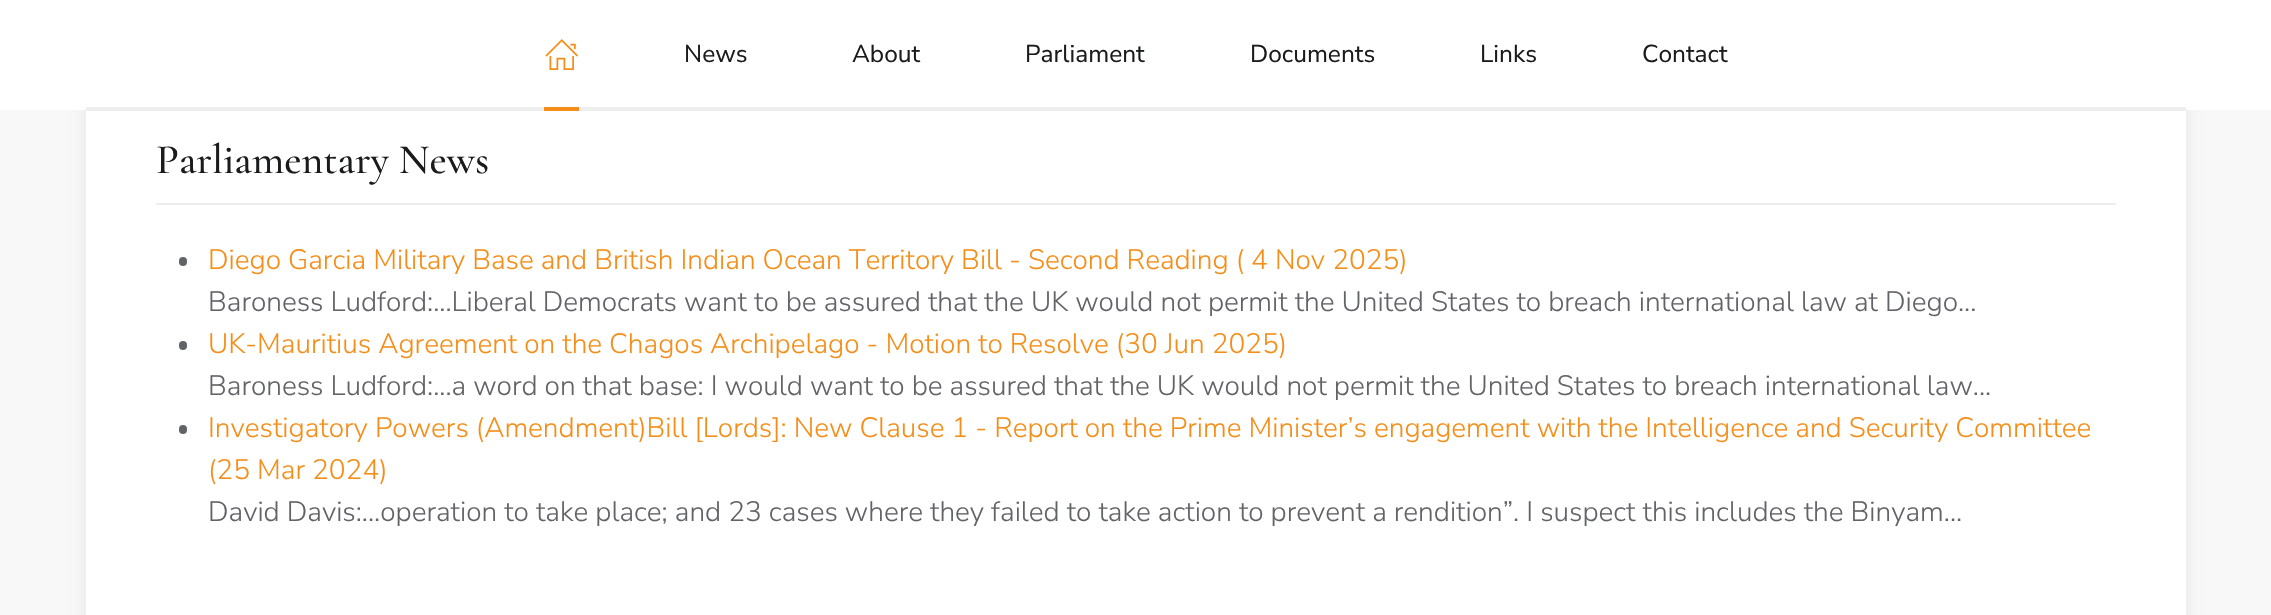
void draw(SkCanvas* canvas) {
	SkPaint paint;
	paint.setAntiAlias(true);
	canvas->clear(0xfff8f8f8);
	paint.setColor(0x12000000);
	paint.setMaskFilter(SkMaskFilter::MakeBlur(kNormal_SkBlurStyle, 7));
	canvas->drawRect(SkRect::MakeXYWH(86, 65, 2100, 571), paint);
	paint.setMaskFilter(nullptr);
	paint.setColor(0xffffffff);
	canvas->drawRect(SkRect::MakeXYWH(0, 0, 2271, 110), paint);
	paint.setColor(0xffeeeeee);
	canvas->drawRect(SkRect::MakeXYWH(86, 107, 2100, 4), paint);
	canvas->drawImageRect(SkImages::DeferredFromEncodedData(SkData::MakeFromFileName("img1.png")), SkRect::MakeXYWH(545, 39, 33, 31), SkSamplingOptions());
	paint.setColor(0xfff58e18);
	canvas->drawRect(SkRect::MakeXYWH(544, 107, 35, 4), paint);
	SkFont f1(fontMgr->matchFamilyStyle("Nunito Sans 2", SkFontStyle(200, SkFontStyle::kNormal_Width, SkFontStyle::kUpright_Slant)), 24.5);
	f1.setSubpixel(true);
	paint.setColor(0xff1a1b1d);
	canvas->drawString("News", 684, 62, f1, paint);
	canvas->drawString("About", 852, 62, f1, paint);
	canvas->drawString("Parliament", 1025, 62, f1, paint);
	canvas->drawString("Documents", 1250, 62, f1, paint);
	canvas->drawString("Links", 1480, 62, f1, paint);
	canvas->drawString("Contact", 1642, 62, f1, paint);
	paint.setColor(0xffffffff);
	canvas->drawRect(SkRect::MakeXYWH(86, 111, 2100, 504), paint);
	paint.setColor(0xffeeeeee);
	canvas->drawRect(SkRect::MakeXYWH(156, 203, 1960, 2), paint);
	SkFont f2(fontMgr->matchFamilyStyle("Cormorant Garamond", SkFontStyle(500, SkFontStyle::kNormal_Width, SkFontStyle::kUpright_Slant)), 42);
	f2.setSubpixel(true);
	paint.setColor(0xff1a1b1d);
	canvas->drawString("Parliamentary News", 156, 173, f2, paint);
	paint.setColor(0xff616367);
	canvas->drawRoundRect(SkRect::MakeXYWH(179, 257, 8, 9), 4, 4, paint);
	SkFont f3(fontMgr->matchFamilyStyle("Nunito Sans", SkFontStyle(200, SkFontStyle::kNormal_Width, SkFontStyle::kUpright_Slant)), 28);
	f3.setSubpixel(true);
	paint.setColor(0xfff58e18);
	canvas->drawString("Diego Garcia Military Base and British Indian Ocean Territory Bill - Second Reading ( 4 Nov 2025)", 208, 269, f3, paint);
	paint.setColor(0xff616367);
	canvas->drawString("Baroness Ludford:...Liberal Democrats want to be assured that the UK would not permit the United States to breach international law at Diego...", 208, 311, f3, paint);
	canvas->drawRoundRect(SkRect::MakeXYWH(179, 341, 8, 9), 4, 4, paint);
	paint.setColor(0xfff58e18);
	canvas->drawString("UK-Mauritius Agreement on the Chagos Archipelago - Motion to Resolve (30 Jun 2025)", 208, 353, f3, paint);
	paint.setColor(0xff616367);
	canvas->drawString("Baroness Ludford:...a word on that base: I would want to be assured that the UK would not permit the United States to breach international law...", 208, 395, f3, paint);
	canvas->drawRoundRect(SkRect::MakeXYWH(179, 425, 8, 9), 4, 4, paint);
	paint.setColor(0xfff58e18);
	canvas->drawString("Investigatory Powers (Amendment)Bill [Lords]: New Clause 1 - Report on the Prime Minister’s engagement with the Intelligence and Security Committee", 208, 437, f3, paint);
	canvas->drawString("(25 Mar 2024)", 208, 479, f3, paint);
	paint.setColor(0xff616367);
	canvas->drawString("David Davis:...operation to take place; and 23 cases where they failed to take action to prevent a rendition”. I suspect this includes the Binyam...", 208, 521, f3, paint);
}
